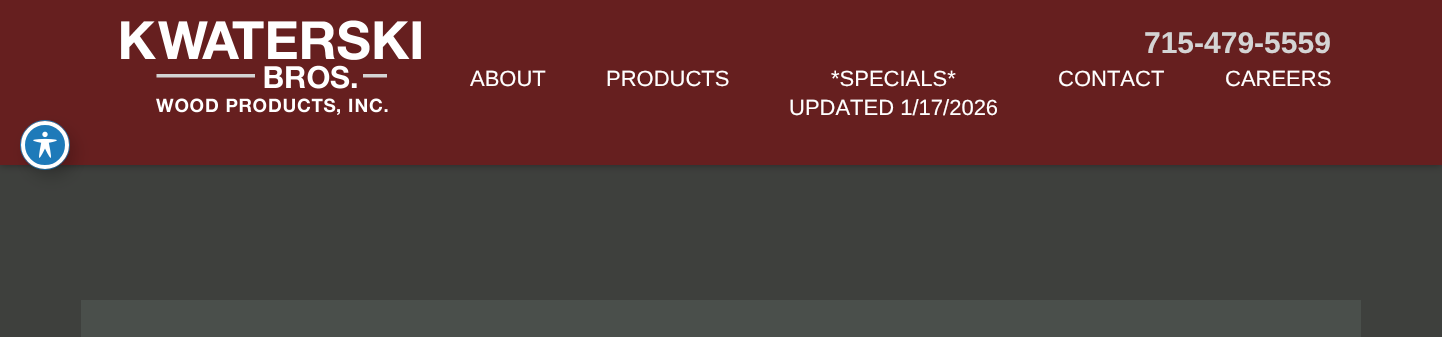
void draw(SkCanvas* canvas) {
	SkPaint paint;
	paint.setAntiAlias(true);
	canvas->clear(0xff3e403d);
	paint.setColor(0x66000000);
	paint.setMaskFilter(SkMaskFilter::MakeBlur(kNormal_SkBlurStyle, 4));
	canvas->drawRect(SkRect::MakeXYWH(0, 0, 1442, 165), paint);
	paint.setMaskFilter(nullptr);
	paint.setColor(0xff661f1f);
	canvas->drawRect(SkRect::MakeXYWH(0, 0, 1442, 165), paint);
	canvas->drawImageRect(SkImages::DeferredFromEncodedData(SkData::MakeFromFileName("img1.png")), SkRect::MakeXYWH(121, 20, 300, 95), SkSamplingOptions());
	SkFont f1(fontMgr->matchFamilyStyle("Liberation Sans", SkFontStyle::Bold()), 30);
	f1.setSubpixel(true);
	paint.setColor(0xffd4d4d4);
	canvas->drawString("715-479-5559", 1144, 53, f1, paint);
	SkFont f2(fontMgr->matchFamilyStyle("Liberation Sans", SkFontStyle::Normal()), 22);
	f2.setSubpixel(true);
	paint.setColor(0xffffffff);
	canvas->drawString("ABOUT", 470, 86, f2, paint);
	canvas->drawString("PRODUCTS", 606, 86, f2, paint);
	canvas->drawString("*SPECIALS*", 831, 86, f2, paint);
	canvas->drawString("UPDATED 1/17/2026", 789, 115, f2, paint);
	canvas->drawString("CONTACT", 1058, 86, f2, paint);
	canvas->drawString("CAREERS", 1225, 86, f2, paint);
	paint.setColor(0xff4a4f4b);
	canvas->drawRect(SkRect::MakeXYWH(81, 300, 1280, 37), paint);
	paint.setStroke(true);
	paint.setStrokeWidth(1);
	paint.setColor(0xff1e7ab9);
	canvas->drawCircle(45, 145, 24.5, paint);
	paint.setStroke(false);
	paint.setColor(0x33000000);
	paint.setMaskFilter(SkMaskFilter::MakeBlur(kNormal_SkBlurStyle, 8));
	canvas->drawRoundRect(SkRect::MakeXYWH(27, 129, 48, 48), 24, 24, paint);
	paint.setMaskFilter(nullptr);
	paint.setColor(0xff1e7ab9);
	canvas->drawCircle(45, 145, 22, paint);
	paint.setStroke(true);
	paint.setStrokeWidth(4);
	paint.setColor(0xffffffff);
	canvas->drawCircle(45, 145, 22, paint);
	canvas->drawImageRect(SkImages::DeferredFromEncodedData(SkData::MakeFromFileName("img2.png")), SkRect::MakeXYWH(33, 131, 24, 27), SkSamplingOptions());
}
